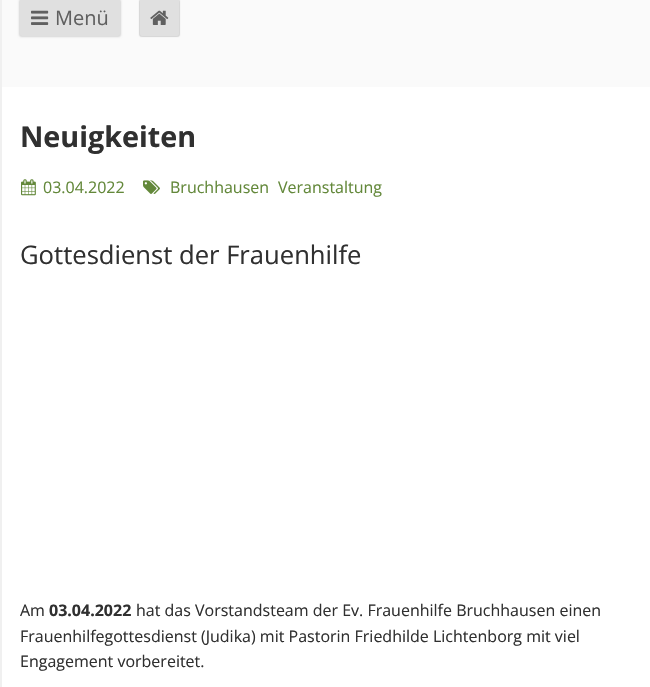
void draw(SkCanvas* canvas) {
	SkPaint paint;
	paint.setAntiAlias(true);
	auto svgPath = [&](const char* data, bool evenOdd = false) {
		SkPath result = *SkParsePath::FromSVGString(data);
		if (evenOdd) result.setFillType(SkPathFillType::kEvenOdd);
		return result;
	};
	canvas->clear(0xffffffff);
	paint.setColor(0xfffafafa);
	canvas->drawRect(SkRect::MakeXYWH(2, 0, 648, 87), paint);
	paint.setColor(0xfff0f0f0);
	canvas->drawRect(SkRect::MakeXYWH(0, 0, 2, 687), paint);
	paint.setColor(0x26000000);
	paint.setMaskFilter(SkMaskFilter::MakeBlur(kNormal_SkBlurStyle, 0.5));
	canvas->drawRoundRect(SkRect::MakeXYWH(139, -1, 41, 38), 3, 3, paint);
	paint.setMaskFilter(nullptr);
	paint.setColor(0xffe0e0e0);
	canvas->drawPath(svgPath("M140 0H179V34C179 35 178 36 177 36H142C141 36 140 35 140 34Z"), paint);
	canvas->drawImageRect(SkImages::DeferredFromEncodedData(SkData::MakeFromFileName("img1.png")), SkRect::MakeXYWH(150, 10, 19, 15), SkSamplingOptions());
	paint.setColor(0x26000000);
	paint.setMaskFilter(SkMaskFilter::MakeBlur(kNormal_SkBlurStyle, 1));
	canvas->drawRoundRect(SkRect::MakeXYWH(19, -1, 102, 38), 3, 3, paint);
	paint.setMaskFilter(nullptr);
	paint.setColor(0xffe0e0e0);
	canvas->drawPath(svgPath("M20 0H120V34C120 35 119 36 118 36H22C21 36 20 35 20 34Z"), paint);
	canvas->drawImageRect(SkImages::DeferredFromEncodedData(SkData::MakeFromFileName("img2.png")), SkRect::MakeXYWH(31, 10, 18, 15), SkSamplingOptions());
	SkFont f1(fontMgr->matchFamilyStyle("Open Sans", SkFontStyle::Normal()), 20);
	f1.setSubpixel(true);
	paint.setColor(0xff606060);
	canvas->drawString("Menü", 55, 25, f1, paint);
	SkFont f2(fontMgr->matchFamilyStyle("Open Sans", SkFontStyle::Bold()), 28.75);
	f2.setSubpixel(true);
	paint.setColor(0xff303030);
	canvas->drawString("Neuigkeiten", 20, 147, f2, paint);
	canvas->drawImageRect(SkImages::DeferredFromEncodedData(SkData::MakeFromFileName("img3.png")), SkRect::MakeXYWH(21, 179, 15, 17), SkSamplingOptions());
	SkFont f3(fontMgr->matchFamilyStyle("Open Sans", SkFontStyle::Normal()), 16);
	f3.setSubpixel(true);
	paint.setColor(0xff63883a);
	canvas->drawString("03.04.2022", 43, 193, f3, paint);
	canvas->drawImageRect(SkImages::DeferredFromEncodedData(SkData::MakeFromFileName("img4.png")), SkRect::MakeXYWH(143, 180, 17, 14), SkSamplingOptions());
	canvas->drawString("Bruchhausen", 170, 193, f3, paint);
	canvas->drawString("Veranstaltung", 278, 193, f3, paint);
	SkFont f4(fontMgr->matchFamilyStyle("Open Sans", SkFontStyle::Normal()), 25.6);
	f4.setSubpixel(true);
	paint.setColor(0xff303030);
	canvas->drawString("Gottesdienst der Frauenhilfe", 20, 264, f4, paint);
	canvas->drawString("Am", 20, 616, f3, paint);
	SkFont f5(fontMgr->matchFamilyStyle("Open Sans", SkFontStyle::Bold()), 16);
	f5.setSubpixel(true);
	canvas->drawString("03.04.2022", 49, 616, f5, paint);
	canvas->drawString("hat das Vorstandsteam der Ev. Frauenhilfe Bruchhausen einen", 136, 616, f3, paint);
	canvas->drawString("Frauenhilfegottesdienst (Judika) mit Pastorin Friedhilde Lichtenborg mit viel", 20, 642, f3, paint);
	canvas->drawString("Engagement vorbereitet.", 20, 667, f3, paint);
}
